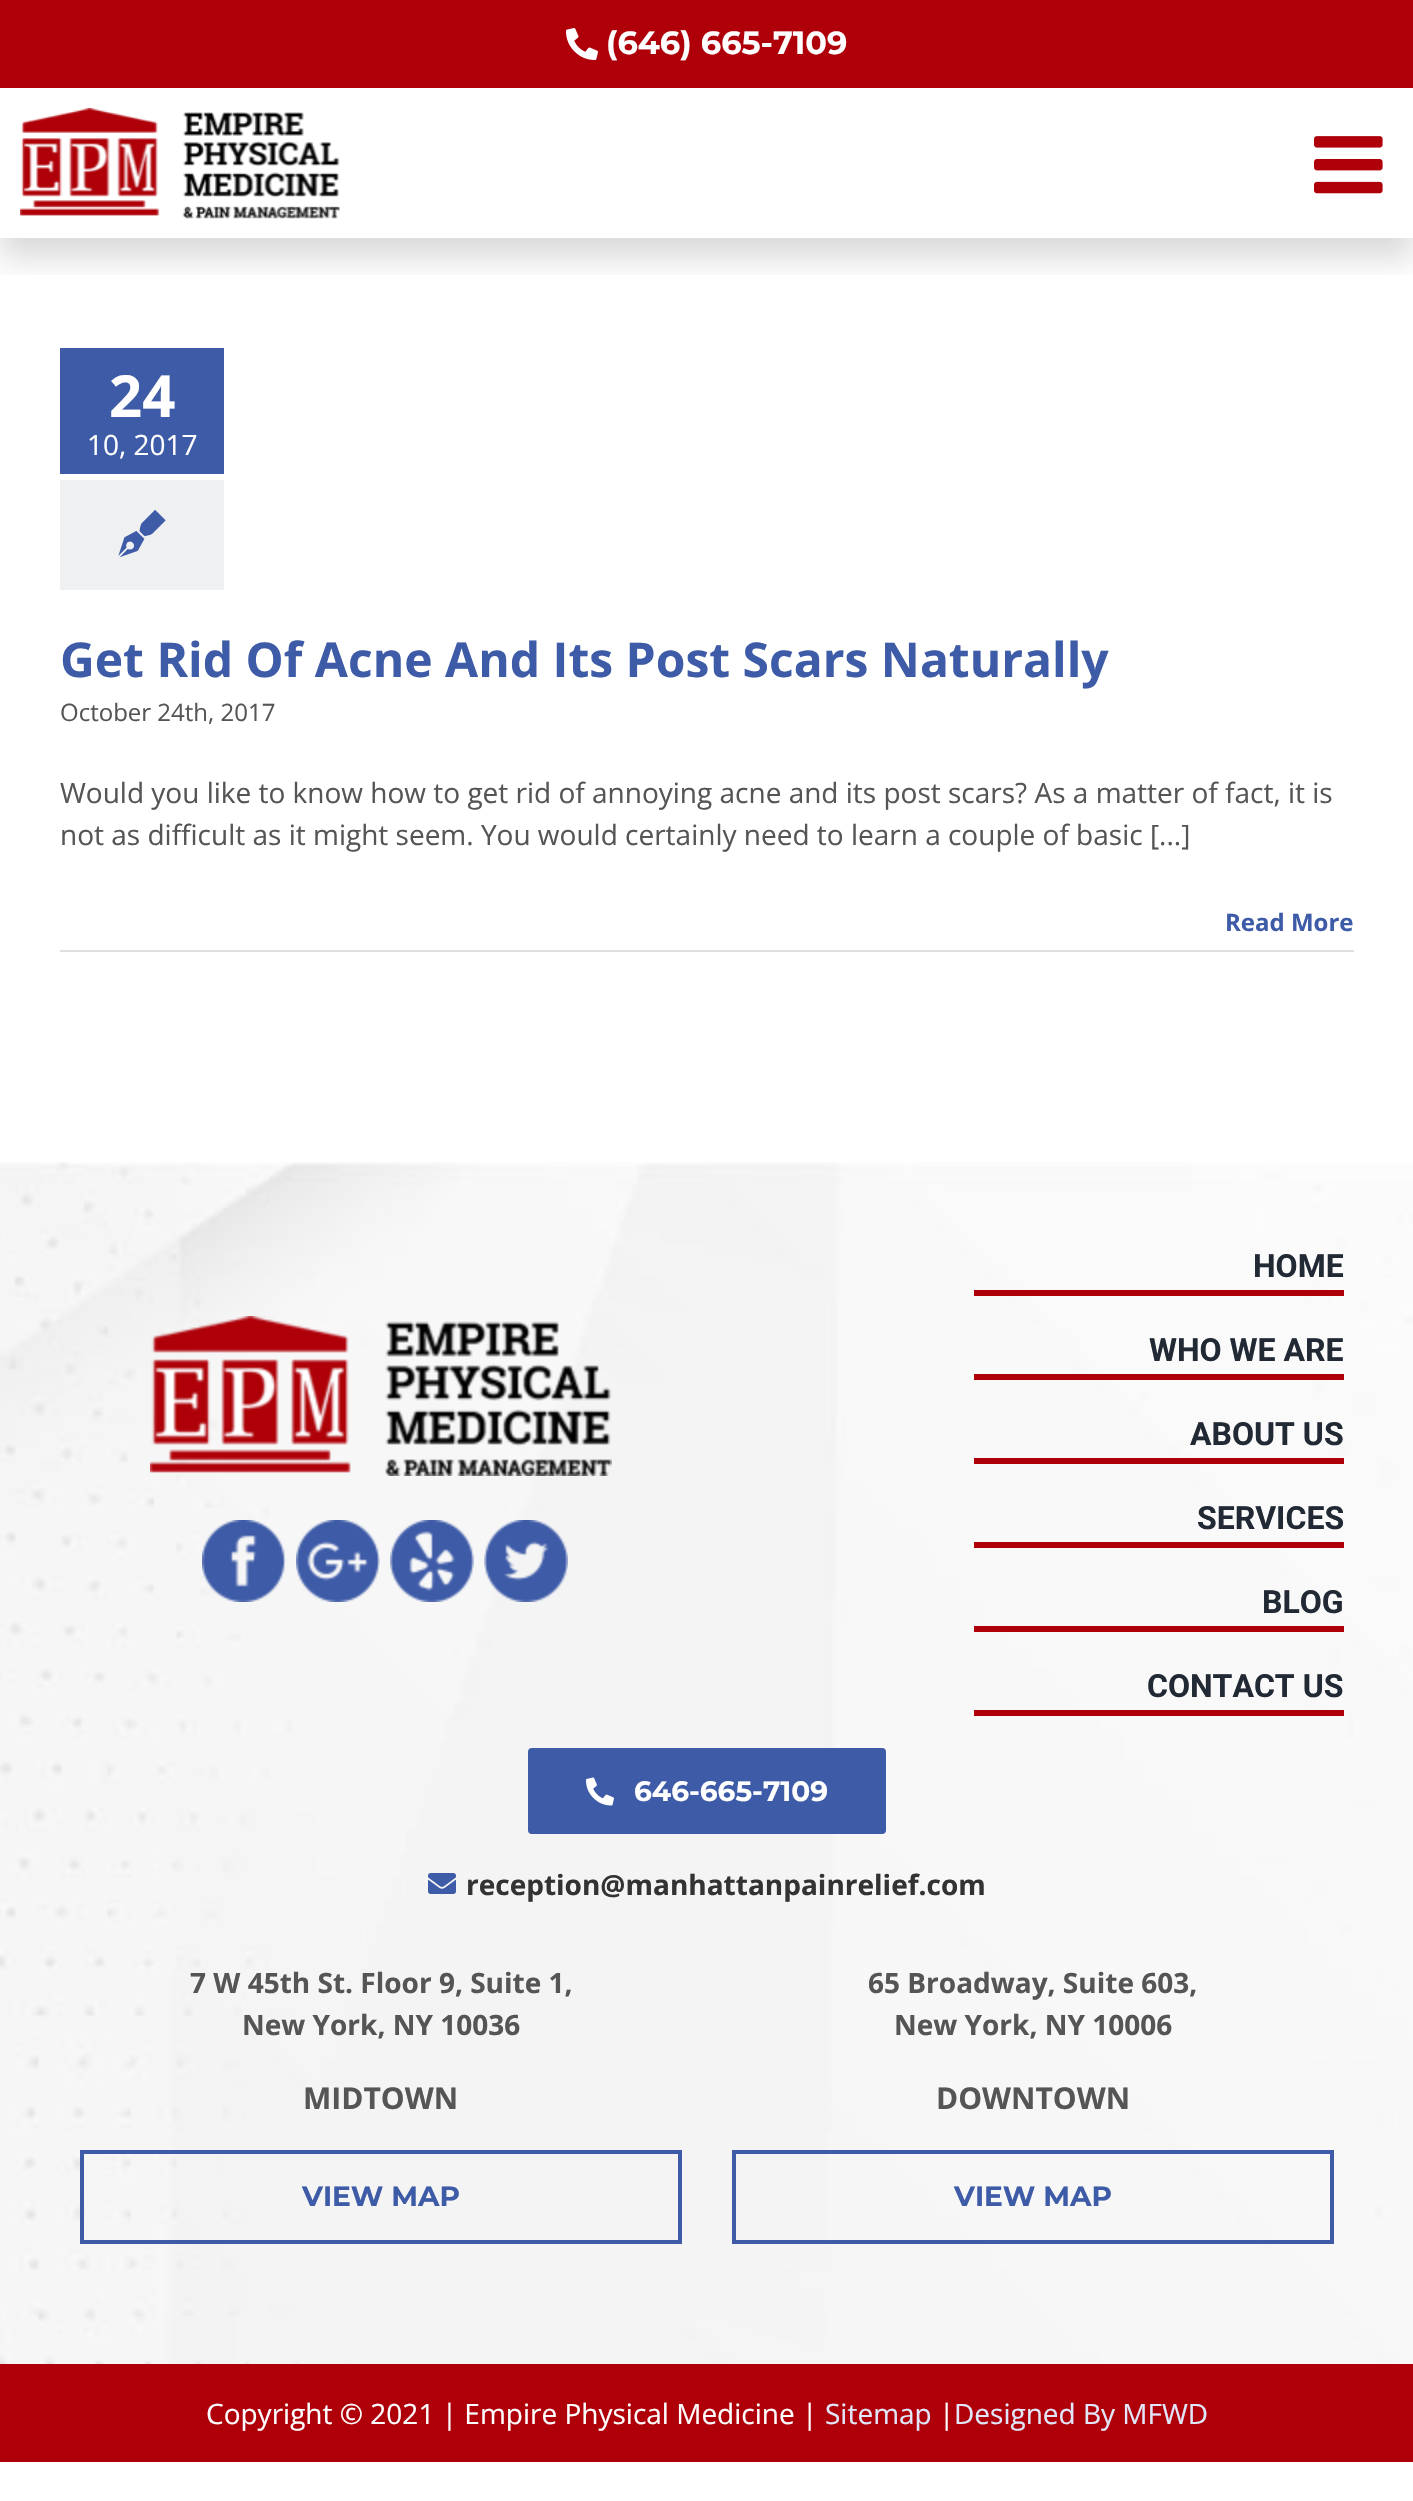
void draw(SkCanvas* canvas) {
	SkPaint paint;
	paint.setAntiAlias(true);
	canvas->clear(0xffffffff);
	paint.setColor(0xffaf000a);
	canvas->drawRect(SkRect::MakeXYWH(0, 0, 1413, 88), paint);
	canvas->drawImageRect(SkImages::DeferredFromEncodedData(SkData::MakeFromFileName("img1.png")), SkRect::MakeXYWH(566, 28, 32, 32), SkSamplingOptions());
	SkFont f1(fontMgr->matchFamilyStyle("Montserrat", SkFontStyle(100, SkFontStyle::kNormal_Width, SkFontStyle::kUpright_Slant)), 32);
	f1.setSubpixel(true);
	paint.setColor(0xffffffff);
	canvas->drawString("(646) 665-7109", 606, 54, f1, paint);
	canvas->save();
	canvas->clipRect(SkRect::MakeXYWH(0, 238, 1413, 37));
	paint.setColor(0x26000000);
	paint.setMaskFilter(SkMaskFilter::MakeBlur(kNormal_SkBlurStyle, 15));
	canvas->drawRect(SkRect::MakeXYWH(0, 108, 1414, 150), paint);
	paint.setMaskFilter(nullptr);
	canvas->restore();
	canvas->drawImageRect(SkImages::DeferredFromEncodedData(SkData::MakeFromFileName("img2.png")), SkRect::MakeXYWH(20, 108, 320, 111), SkSamplingOptions());
	canvas->drawImageRect(SkImages::DeferredFromEncodedData(SkData::MakeFromFileName("img3.png")), SkRect::MakeXYWH(1314, 136, 69, 58), SkSamplingOptions());
	paint.setColor(0xff3e5ba7);
	canvas->drawRect(SkRect::MakeXYWH(60, 348, 164, 126), paint);
	SkFont f2(fontMgr->matchFamilyStyle("Open Sans", SkFontStyle::Bold()), 58);
	f2.setSubpixel(true);
	paint.setColor(0xffffffff);
	canvas->drawString("24", 109, 417, f2, paint);
	SkFont f3(fontMgr->matchFamilyStyle("Open Sans", SkFontStyle::Normal()), 28);
	f3.setSubpixel(true);
	canvas->drawString("10, 2017", 87, 455, f3, paint);
	paint.setColor(0xffeef0f2);
	canvas->drawRect(SkRect::MakeXYWH(60, 480, 164, 110), paint);
	canvas->drawImageRect(SkImages::DeferredFromEncodedData(SkData::MakeFromFileName("img4.png")), SkRect::MakeXYWH(118, 509, 48, 49), SkSamplingOptions());
	SkFont f4(fontMgr->matchFamilyStyle("Open Sans", SkFontStyle::Bold()), 48);
	f4.setSubpixel(true);
	paint.setColor(0xff3e5ba7);
	canvas->drawString("Get Rid Of Acne And Its Post Scars Naturally", 60, 677, f4, paint);
	SkFont f5(fontMgr->matchFamilyStyle("Open Sans", SkFontStyle::Normal()), 24);
	f5.setSubpixel(true);
	paint.setColor(0xff555555);
	canvas->drawString("October 24th, 2017", 60, 721, f5, paint);
	canvas->drawString("Would you like to know how to get rid of annoying acne and its post scars? As a matter of fact, it is", 60, 803, f3, paint);
	canvas->drawString("not as difficult as it might seem. You would certainly need to learn a couple of basic [...]", 60, 845, f3, paint);
	paint.setColor(0xffe0dede);
	canvas->drawRect(SkRect::MakeXYWH(60, 950, 1294, 2), paint);
	SkFont f6(fontMgr->matchFamilyStyle("Open Sans", SkFontStyle::Bold()), 24);
	f6.setSubpixel(true);
	paint.setColor(0xff3e5ba7);
	canvas->drawString("Read More", 1225, 931, f6, paint);
	canvas->drawImageRect(SkImages::DeferredFromEncodedData(SkData::MakeFromFileName("img5.png")), SkRect::MakeXYWH(0, 1162, 1413, 1202), SkSamplingOptions());
	canvas->drawImageRect(SkImages::DeferredFromEncodedData(SkData::MakeFromFileName("img6.png")), SkRect::MakeXYWH(150, 1316, 462, 160), SkSamplingOptions());
	canvas->drawImageRect(SkImages::DeferredFromEncodedData(SkData::MakeFromFileName("img7.png")), SkRect::MakeXYWH(202, 1520, 84, 82), SkSamplingOptions());
	canvas->drawImageRect(SkImages::DeferredFromEncodedData(SkData::MakeFromFileName("img8.png")), SkRect::MakeXYWH(296, 1520, 84, 82), SkSamplingOptions());
	canvas->drawImageRect(SkImages::DeferredFromEncodedData(SkData::MakeFromFileName("img9.png")), SkRect::MakeXYWH(390, 1520, 84, 82), SkSamplingOptions());
	canvas->drawImageRect(SkImages::DeferredFromEncodedData(SkData::MakeFromFileName("img10.png")), SkRect::MakeXYWH(484, 1520, 84, 82), SkSamplingOptions());
	SkFont f7(fontMgr->matchFamilyStyle("Roboto", SkFontStyle::Bold()), 32);
	f7.setSubpixel(true);
	paint.setColor(0xff212934);
	canvas->drawString("HOME", 1253, 1277, f7, paint);
	paint.setColor(0xffaf000a);
	canvas->drawRect(SkRect::MakeXYWH(974, 1290, 370, 6), paint);
	paint.setColor(0xff212934);
	canvas->drawString("WHO WE ARE", 1149, 1361, f7, paint);
	paint.setColor(0xffaf000a);
	canvas->drawRect(SkRect::MakeXYWH(974, 1374, 370, 6), paint);
	paint.setColor(0xff212934);
	canvas->drawString("ABOUT US", 1190, 1445, f7, paint);
	paint.setColor(0xffaf000a);
	canvas->drawRect(SkRect::MakeXYWH(974, 1458, 370, 6), paint);
	paint.setColor(0xff212934);
	canvas->drawString("SERVICES", 1197, 1529, f7, paint);
	paint.setColor(0xffaf000a);
	canvas->drawRect(SkRect::MakeXYWH(974, 1542, 370, 6), paint);
	paint.setColor(0xff212934);
	canvas->drawString("BLOG", 1262, 1613, f7, paint);
	paint.setColor(0xffaf000a);
	canvas->drawRect(SkRect::MakeXYWH(974, 1626, 370, 6), paint);
	paint.setColor(0xff212934);
	canvas->drawString("CONTACT US", 1147, 1697, f7, paint);
	paint.setColor(0xffaf000a);
	canvas->drawRect(SkRect::MakeXYWH(974, 1710, 370, 6), paint);
	paint.setColor(0xff3e5ba7);
	canvas->drawRoundRect(SkRect::MakeXYWH(528, 1748, 358, 86), 4, 4, paint);
	canvas->drawImageRect(SkImages::DeferredFromEncodedData(SkData::MakeFromFileName("img11.png")), SkRect::MakeXYWH(586, 1777, 28, 29), SkSamplingOptions());
	SkFont f8(fontMgr->matchFamilyStyle("Montserrat", SkFontStyle(100, SkFontStyle::kNormal_Width, SkFontStyle::kUpright_Slant)), 28);
	f8.setSubpixel(true);
	paint.setColor(0xffffffff);
	canvas->drawString("646-665-7109", 634, 1801, f8, paint);
	canvas->drawImageRect(SkImages::DeferredFromEncodedData(SkData::MakeFromFileName("img12.png")), SkRect::MakeXYWH(428, 1873, 28, 21), SkSamplingOptions());
	SkFont f9(fontMgr->matchFamilyStyle("Open Sans", SkFontStyle::Bold()), 28);
	f9.setSubpixel(true);
	paint.setColor(0xff333333);
	canvas->drawString("reception@manhattanpainrelief.com", 466, 1895, f9, paint);
	paint.setColor(0xff555555);
	canvas->drawString("7 W 45th St. Floor 9, Suite 1,", 190, 1993, f9, paint);
	canvas->drawString("New York, NY 10036", 242, 2035, f9, paint);
	SkFont f10(fontMgr->matchFamilyStyle("Open Sans", SkFontStyle::Bold()), 30);
	f10.setSubpixel(true);
	canvas->drawString("MIDTOWN", 303, 2109, f10, paint);
	paint.setStroke(true);
	paint.setStrokeWidth(4);
	paint.setColor(0xff3e5ba7);
	canvas->drawRect(SkRect::MakeXYWH(82, 2152, 598, 90), paint);
	paint.setStroke(false);
	canvas->drawString("VIEW MAP", 302, 2206, f8, paint);
	paint.setColor(0xff555555);
	canvas->drawString("65 Broadway, Suite 603,", 868, 1993, f9, paint);
	canvas->drawString("New York, NY 10006", 894, 2035, f9, paint);
	canvas->drawString("DOWNTOWN", 936, 2109, f10, paint);
	paint.setStroke(true);
	paint.setColor(0xff3e5ba7);
	canvas->drawRect(SkRect::MakeXYWH(734, 2152, 598, 90), paint);
	paint.setStroke(false);
	canvas->drawString("VIEW MAP", 954, 2206, f8, paint);
	paint.setColor(0xffaf000a);
	canvas->drawRect(SkRect::MakeXYWH(0, 2364, 1413, 98), paint);
	paint.setColor(0xffffffff);
	canvas->drawString("Copyright © 2021 | Empire Physical Medicine |", 206, 2424, f3, paint);
	paint.setColor(0xffe1e7f9);
	canvas->drawString("Sitemap", 825, 2424, f3, paint);
	paint.setColor(0xffffffff);
	canvas->drawString("|", 939, 2424, f3, paint);
	paint.setColor(0xffe1e7f9);
	canvas->drawString("Designed By MFWD", 954, 2424, f3, paint);
}
